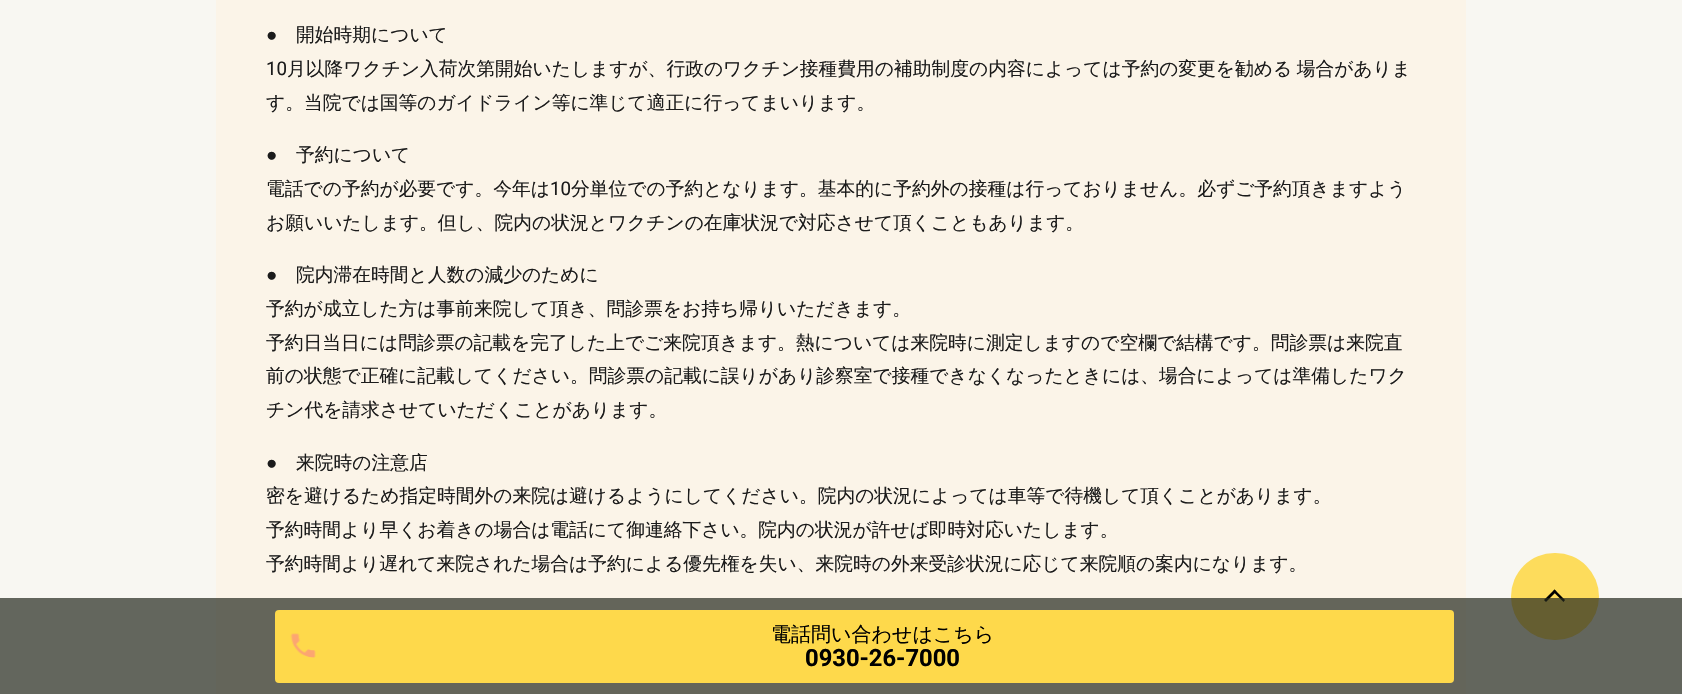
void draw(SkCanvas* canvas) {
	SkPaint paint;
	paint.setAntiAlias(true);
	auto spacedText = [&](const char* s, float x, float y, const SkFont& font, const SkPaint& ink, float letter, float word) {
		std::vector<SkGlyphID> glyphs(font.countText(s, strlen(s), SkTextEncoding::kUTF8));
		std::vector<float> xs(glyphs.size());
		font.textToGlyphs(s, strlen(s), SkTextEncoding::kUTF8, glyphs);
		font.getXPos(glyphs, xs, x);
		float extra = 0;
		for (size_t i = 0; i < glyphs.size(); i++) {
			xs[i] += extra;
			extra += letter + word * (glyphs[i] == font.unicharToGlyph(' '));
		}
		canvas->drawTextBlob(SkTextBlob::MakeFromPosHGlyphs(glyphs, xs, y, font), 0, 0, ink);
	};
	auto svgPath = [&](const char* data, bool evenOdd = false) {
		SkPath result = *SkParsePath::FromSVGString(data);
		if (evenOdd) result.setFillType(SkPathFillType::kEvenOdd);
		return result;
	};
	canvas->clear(0xfff8f7f2);
	paint.setColor(0xfffbf4e8);
	canvas->drawRect(SkRect::MakeXYWH(216, 0, 1250, 694), paint);
	SkFont f1(fontMgr->matchFamilyStyle("Liberation Sans", SkFontStyle::Normal()), 18.75);
	f1.setSubpixel(true);
	paint.setColor(0xff1b1b1b);
	canvas->drawString("●", 266, 41, f1, paint);
	SkFont f2(fontMgr->matchFamilyStyle("WenQuanYi Zen Hei", SkFontStyle(500, SkFontStyle::kNormal_Width, SkFontStyle::kUpright_Slant)), 18.75);
	f2.setSubpixel(true);
	canvas->drawString("開始時期について", 296, 41, f2, paint);
	SkFont f3(fontMgr->matchFamilyStyle("Roboto", SkFontStyle::Normal()), 18.75);
	f3.setSubpixel(true);
	canvas->drawString("10", 266, 75, f3, paint);
	spacedText("月以降ワクチン入荷次第開始いたしますが、行政のワクチン接種費用の補助制度の内容によっては予約の変更を勧める 場合がありま", 287, 75, f2, paint, 0, -1);
	canvas->drawString("す。当院では国等のガイドライン等に準じて適正に行ってまいります。", 266, 109, f2, paint);
	canvas->drawString("●", 266, 161, f1, paint);
	canvas->drawString("予約について", 296, 161, f2, paint);
	canvas->drawString("電話での予約が必要です。今年は", 266, 195, f2, paint);
	canvas->drawString("10", 550, 195, f3, paint);
	canvas->drawString("分単位での予約となります。基本的に予約外の接種は行っておりません。必ずご予約頂きますよう", 571, 195, f2, paint);
	canvas->drawString("お願いいたします。但し、院内の状況とワクチンの在庫状況で対応させて頂くこともあります。", 266, 229, f2, paint);
	canvas->drawString("●", 266, 281, f1, paint);
	canvas->drawString("院内滞在時間と人数の減少のために", 296, 281, f2, paint);
	canvas->drawString("予約が成立した方は事前来院して頂き、問診票をお持ち帰りいただきます。", 266, 315, f2, paint);
	canvas->drawString("予約日当日には問診票の記載を完了した上でご来院頂きます。熱については来院時に測定しますので空欄で結構です。問診票は来院直", 266, 349, f2, paint);
	canvas->drawString("前の状態で正確に記載してください。問診票の記載に誤りがあり診察室で接種できなくなったときには、場合によっては準備したワク", 266, 382, f2, paint);
	canvas->drawString("チン代を請求させていただくことがあります。", 266, 416, f2, paint);
	canvas->drawString("●", 266, 469, f1, paint);
	canvas->drawString("来院時の注意店", 296, 469, f2, paint);
	canvas->drawString("密を避けるため指定時間外の来院は避けるようにしてください。院内の状況によっては車等で待機して頂くことがあります。", 266, 502, f2, paint);
	canvas->drawString("予約時間より早くお着きの場合は電話にて御連絡下さい。院内の状況が許せば即時対応いたします。", 266, 536, f2, paint);
	canvas->drawString("予約時間より遅れて来院された場合は予約による優先権を失い、来院時の外来受診状況に応じて来院順の案内になります。", 266, 570, f2, paint);
	paint.setColor(0xfffddc5c);
	canvas->drawRoundRect(SkRect::MakeXYWH(1511, 553, 88, 87), 43.5, 43.5, paint);
	paint.setColor(0xff000000);
	canvas->drawPath(svgPath("M1554.5 589.5L1565 600L1563.5 602L1553 591.5Z"), paint);
	canvas->drawPath(svgPath("M1554.5 589.5L1556.5 591.5L1546 602L1544 600Z"), paint);
	paint.setColor(0xb323281e);
	canvas->drawRect(SkRect::MakeXYWH(0, 598, 1682, 96), paint);
	paint.setColor(0xfffed94b);
	canvas->drawRoundRect(SkRect::MakeXYWH(275, 610, 1179, 73), 4, 4, paint);
	canvas->drawImageRect(SkImages::DeferredFromEncodedData(SkData::MakeFromFileName("img1.png")), SkRect::MakeXYWH(290, 633, 26, 25), SkSamplingOptions());
	SkFont f4(fontMgr->matchFamilyStyle("WenQuanYi Zen Hei", SkFontStyle(500, SkFontStyle::kNormal_Width, SkFontStyle::kUpright_Slant)), 20);
	f4.setSubpixel(true);
	paint.setColor(0xff000000);
	canvas->drawString("電話問い合わせはこちら", 771, 641, f4, paint);
	SkFont f5(fontMgr->matchFamilyStyle("Roboto", SkFontStyle::Bold()), 23.75);
	f5.setSubpixel(true);
	canvas->drawString("0930-26-7000", 805, 666, f5, paint);
}
